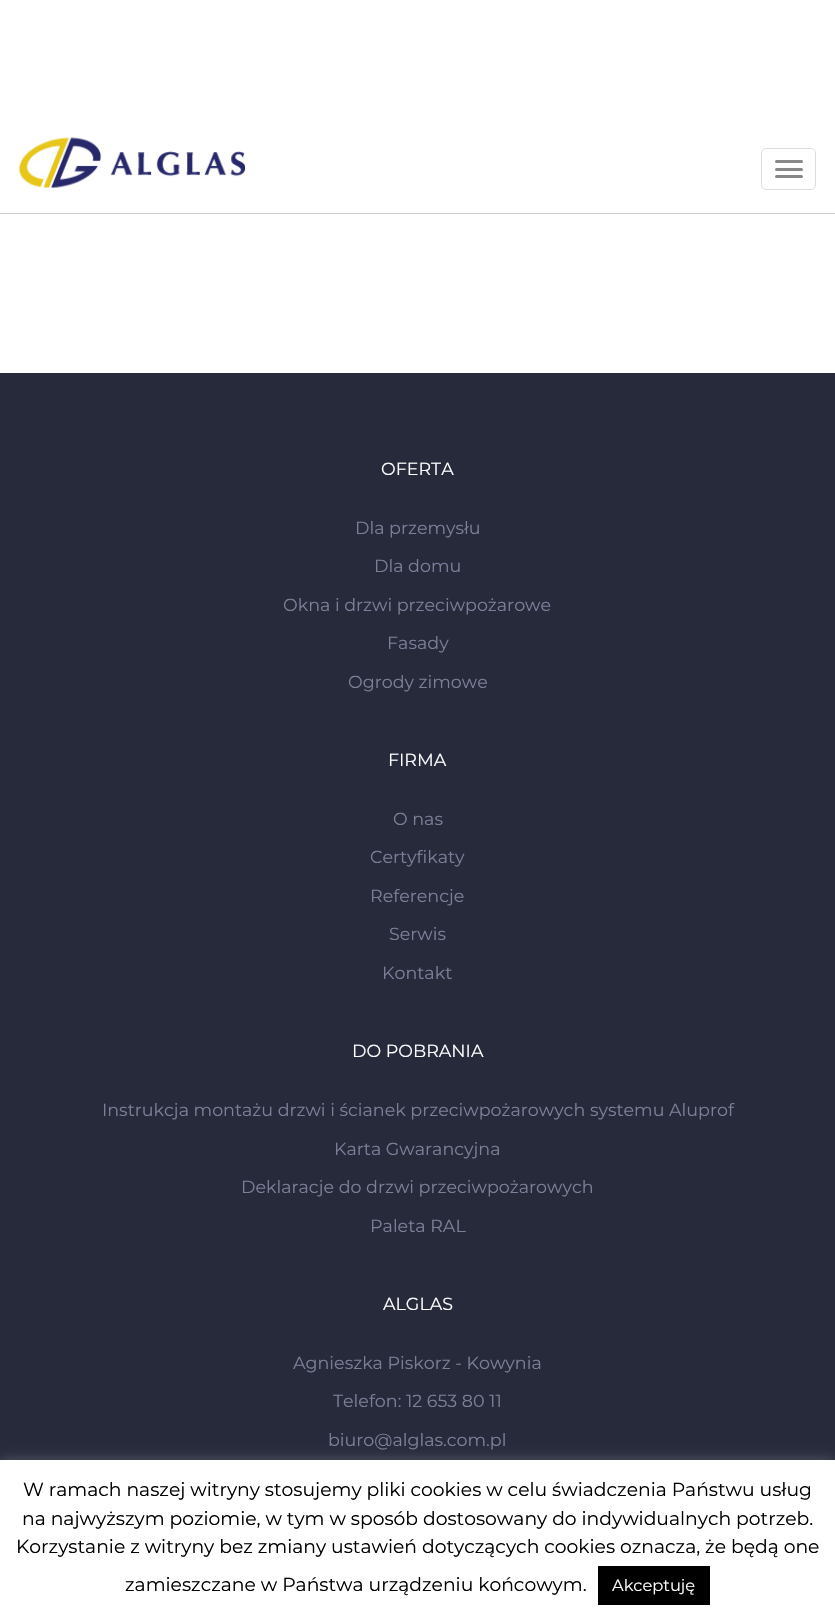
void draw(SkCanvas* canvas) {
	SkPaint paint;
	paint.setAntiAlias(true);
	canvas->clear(0xffffffff);
	paint.setColor(0xffcccccc);
	canvas->drawRect(SkRect::MakeXYWH(0, 213, 835, 1), paint);
	canvas->drawImageRect(SkImages::DeferredFromEncodedData(SkData::MakeFromFileName("img1.png")), SkRect::MakeXYWH(18, 137, 227, 51), SkSamplingOptions());
	paint.setStroke(true);
	paint.setStrokeWidth(1);
	paint.setColor(0xffdddddd);
	canvas->drawRoundRect(SkRect::MakeXYWH(761.5, 148.5, 54, 41), 4.5, 4.5, paint);
	paint.setStroke(false);
	paint.setColor(0xff888888);
	canvas->drawRoundRect(SkRect::MakeXYWH(775, 160, 28, 3), 1.5, 1.5, paint);
	canvas->drawRoundRect(SkRect::MakeXYWH(775, 168, 28, 3), 1.5, 1.5, paint);
	canvas->drawRoundRect(SkRect::MakeXYWH(775, 175, 28, 3), 1.5, 1.5, paint);
	paint.setColor(0xff262a3b);
	canvas->drawRect(SkRect::MakeXYWH(0, 373, 835, 1087), paint);
	SkFont f1(fontMgr->matchFamilyStyle("Montserrat", SkFontStyle::Normal()), 17.5);
	f1.setSubpixel(true);
	paint.setColor(0xffffffff);
	canvas->drawString("OFERTA", 381, 475, f1, paint);
	paint.setColor(0xff7d7e98);
	canvas->drawString("Dla przemysłu", 355, 534, f1, paint);
	canvas->drawString("Dla domu", 374, 572, f1, paint);
	canvas->drawString("Okna i drzwi przeciwpożarowe", 283, 611, f1, paint);
	canvas->drawString("Fasady", 387, 649, f1, paint);
	canvas->drawString("Ogrody zimowe", 348, 688, f1, paint);
	paint.setColor(0xffffffff);
	canvas->drawString("FIRMA", 388, 766, f1, paint);
	paint.setColor(0xff7d7e98);
	canvas->drawString("O nas", 393, 825, f1, paint);
	canvas->drawString("Certyfikaty", 370, 863, f1, paint);
	canvas->drawString("Referencje", 370, 902, f1, paint);
	canvas->drawString("Serwis", 389, 940, f1, paint);
	canvas->drawString("Kontakt", 382, 979, f1, paint);
	paint.setColor(0xffffffff);
	canvas->drawString("DO POBRANIA", 352, 1057, f1, paint);
	paint.setColor(0xff7d7e98);
	canvas->drawString("Instrukcja montażu drzwi i ścianek przeciwpożarowych systemu Aluprof", 102, 1116, f1, paint);
	canvas->drawString("Karta Gwarancyjna", 334, 1155, f1, paint);
	canvas->drawString("Deklaracje do drzwi przeciwpożarowych", 241, 1193, f1, paint);
	canvas->drawString("Paleta RAL", 370, 1232, f1, paint);
	paint.setColor(0xffffffff);
	canvas->drawString("ALGLAS", 383, 1310, f1, paint);
	paint.setColor(0xff7d7e98);
	canvas->drawString("Agnieszka Piskorz - Kowynia", 293, 1369, f1, paint);
	canvas->drawString("Telefon: 12 653 80 11", 333, 1407, f1, paint);
	canvas->drawString("biuro@alglas.com.pl", 328, 1446, f1, paint);
	paint.setColor(0x4dacabab);
	paint.setMaskFilter(SkMaskFilter::MakeBlur(kNormal_SkBlurStyle, 6));
	canvas->drawRect(SkRect::MakeXYWH(0, 1459, 835, 160), paint);
	paint.setMaskFilter(nullptr);
	paint.setColor(0xffffffff);
	canvas->drawRect(SkRect::MakeXYWH(0, 1460, 835, 159), paint);
	SkFont f2(fontMgr->matchFamilyStyle("Montserrat", SkFontStyle::Normal()), 18.75);
	f2.setSubpixel(true);
	paint.setColor(0xff000000);
	canvas->drawString("W ramach naszej witryny stosujemy pliki cookies w celu świadczenia Państwu usług", 23, 1496, f2, paint);
	canvas->drawString("na najwyższym poziomie, w tym w sposób dostosowany do indywidualnych potrzeb.", 22, 1525, f2, paint);
	canvas->drawString("Korzystanie z witryny bez zmiany ustawień dotyczących cookies oznacza, że będą one", 16, 1553, f2, paint);
	canvas->drawString("zamieszczane w Państwa urządzeniu końcowym.", 125, 1591, f2, paint);
	canvas->drawRect(SkRect::MakeXYWH(598, 1566, 112, 39), paint);
	SkFont f3(fontMgr->matchFamilyStyle("Montserrat", SkFontStyle::Normal()), 16.25);
	f3.setSubpixel(true);
	paint.setColor(0xffffffff);
	canvas->drawString("Akceptuję", 612, 1591, f3, paint);
}
